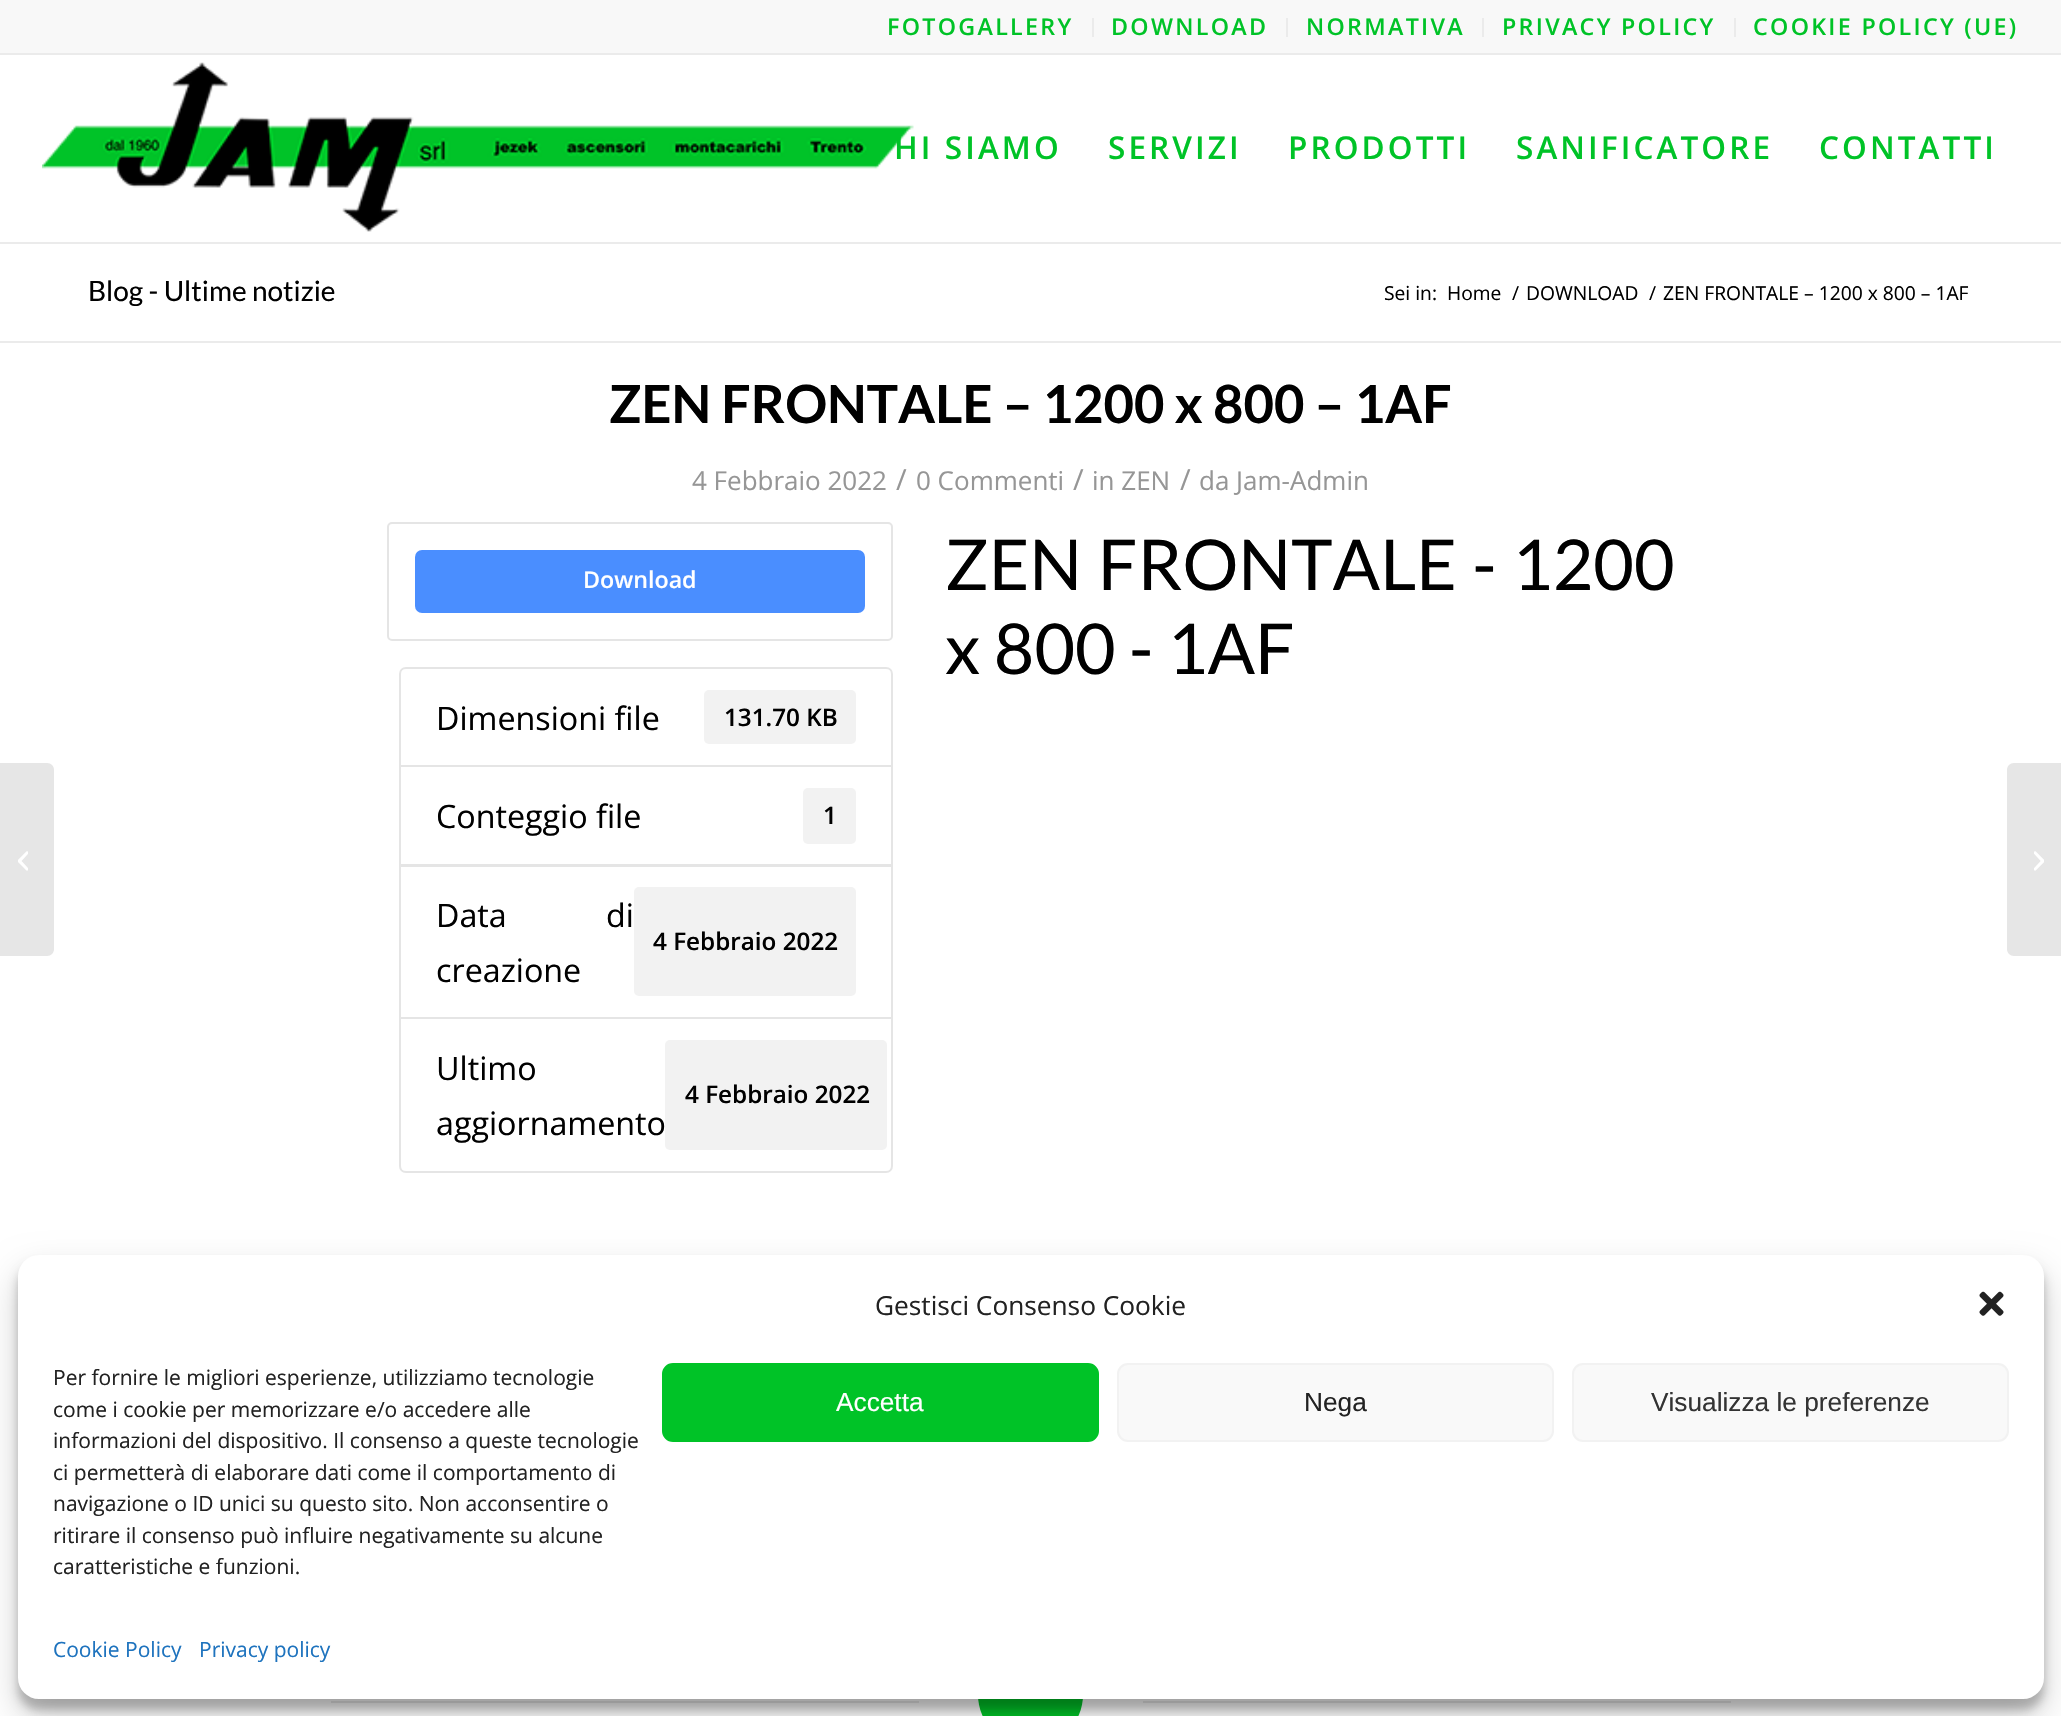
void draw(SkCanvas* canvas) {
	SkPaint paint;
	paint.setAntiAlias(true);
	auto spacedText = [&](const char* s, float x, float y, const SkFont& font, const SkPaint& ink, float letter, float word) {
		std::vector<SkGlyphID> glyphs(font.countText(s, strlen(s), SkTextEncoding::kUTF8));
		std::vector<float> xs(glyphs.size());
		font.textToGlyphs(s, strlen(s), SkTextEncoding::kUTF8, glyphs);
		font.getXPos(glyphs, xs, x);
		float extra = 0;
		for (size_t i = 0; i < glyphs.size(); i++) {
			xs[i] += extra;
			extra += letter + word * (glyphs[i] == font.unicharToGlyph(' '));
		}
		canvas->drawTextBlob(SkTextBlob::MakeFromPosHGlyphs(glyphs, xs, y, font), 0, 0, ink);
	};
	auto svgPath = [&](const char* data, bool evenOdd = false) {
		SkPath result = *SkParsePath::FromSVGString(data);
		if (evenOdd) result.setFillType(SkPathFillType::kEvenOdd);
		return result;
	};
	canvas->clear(0xffffffff);
	paint.setColor(0xfff8f8f8);
	canvas->drawRect(SkRect::MakeXYWH(0, 0, 2061, 53), paint);
	paint.setColor(0xffebebeb);
	canvas->drawRect(SkRect::MakeXYWH(0, 53, 2061, 2), paint);
	canvas->drawRect(SkRect::MakeXYWH(1092, 18, 2, 19), paint);
	SkFont f1(fontMgr->matchFamilyStyle("Open Sans", SkFontStyle(600, SkFontStyle::kNormal_Width, SkFontStyle::kUpright_Slant)), 23.25);
	f1.setSubpixel(true);
	paint.setColor(0xff00c327);
	spacedText("FOTOGALLERY", 887, 35, f1, paint, 2.3, 0);
	paint.setColor(0xffebebeb);
	canvas->drawRect(SkRect::MakeXYWH(1286, 18, 2, 19), paint);
	paint.setColor(0xff00c327);
	spacedText("DOWNLOAD", 1111, 35, f1, paint, 2.3, 0);
	paint.setColor(0xffebebeb);
	canvas->drawRect(SkRect::MakeXYWH(1482, 18, 2, 19), paint);
	paint.setColor(0xff00c327);
	spacedText("NORMATIVA", 1306, 35, f1, paint, 2.3, 0);
	paint.setColor(0xffebebeb);
	canvas->drawRect(SkRect::MakeXYWH(1734, 18, 2, 19), paint);
	paint.setColor(0xff00c327);
	spacedText("PRIVACY POLICY", 1502, 35, f1, paint, 2.3, 0);
	spacedText("COOKIE POLICY (UE)", 1753, 35, f1, paint, 2.3, 0);
	paint.setColor(0xffebebeb);
	canvas->drawRect(SkRect::MakeXYWH(0, 242, 2061, 2), paint);
	canvas->drawImageRect(SkImages::DeferredFromEncodedData(SkData::MakeFromFileName("img1.png")), SkRect::MakeXYWH(42, 62, 872, 170), SkSamplingOptions());
	SkFont f2(fontMgr->matchFamilyStyle("Open Sans", SkFontStyle(600, SkFontStyle::kNormal_Width, SkFontStyle::kUpright_Slant)), 31.5);
	f2.setSubpixel(true);
	paint.setColor(0xff00c327);
	spacedText("HI SIAMO", 894, 159, f2, paint, 3.1, 0);
	spacedText("SERVIZI", 1108, 159, f2, paint, 3.1, 0);
	spacedText("PRODOTTI", 1288, 159, f2, paint, 3.1, 0);
	spacedText("SANIFICATORE", 1516, 159, f2, paint, 3.1, 0);
	spacedText("CONTATTI", 1819, 159, f2, paint, 3.1, 0);
	paint.setColor(0xffe6e6e6);
	canvas->drawPath(svgPath("M0 763H47C51 763 54 766 54 770V949C54 953 51 956 47 956H0Z"), paint);
	canvas->drawImageRect(SkImages::DeferredFromEncodedData(SkData::MakeFromFileName("img2.png")), SkRect::MakeXYWH(18, 851, 10, 20), SkSamplingOptions());
	SkFont f3(fontMgr->matchFamilyStyle("Lato", SkFontStyle::Normal()), 28);
	f3.setSubpixel(true);
	paint.setColor(0xff000000);
	canvas->drawString("Blog - Ultime notizie", 88, 301, f3, paint);
	SkFont f4(fontMgr->matchFamilyStyle("Open Sans", SkFontStyle::Normal()), 19.25);
	f4.setSubpixel(true);
	canvas->drawString("Sei in:", 1384, 300, f4, paint);
	canvas->drawString("Home", 1447, 300, f4, paint);
	canvas->drawString("/", 1512, 300, f4, paint);
	canvas->drawString("DOWNLOAD", 1526, 300, f4, paint);
	canvas->drawString("/", 1649, 300, f4, paint);
	canvas->drawString("ZEN FRONTALE – 1200 x 800 – 1AF", 1663, 300, f4, paint);
	paint.setColor(0xffebebeb);
	canvas->drawRect(SkRect::MakeXYWH(0, 341, 2061, 2), paint);
	SkFont f5(fontMgr->matchFamilyStyle("Lato", SkFontStyle::Bold()), 52.5);
	f5.setSubpixel(true);
	paint.setColor(0xff000000);
	canvas->drawString("ZEN FRONTALE – 1200 x 800 – 1AF", 609, 423, f5, paint);
	SkFont f6(fontMgr->matchFamilyStyle("Open Sans", SkFontStyle::Normal()), 26);
	f6.setSubpixel(true);
	paint.setColor(0xff969696);
	canvas->drawString("4 Febbraio 2022", 692, 490, f6, paint);
	SkFont f7(fontMgr->matchFamilyStyle("Open Sans", SkFontStyle::Normal()), 29);
	f7.setSubpixel(true);
	canvas->drawString("/", 896, 490, f7, paint);
	canvas->drawString("0 Commenti", 916, 490, f6, paint);
	canvas->drawString("/", 1073, 490, f7, paint);
	canvas->drawString("in ZEN", 1092, 490, f6, paint);
	canvas->drawString("/", 1180, 490, f7, paint);
	canvas->drawString("da Jam-Admin", 1199, 490, f6, paint);
	paint.setStroke(true);
	paint.setStrokeWidth(2);
	paint.setColor(0xffe5e5e5);
	canvas->drawRoundRect(SkRect::MakeXYWH(388, 523, 504, 117), 4, 4, paint);
	paint.setStroke(false);
	paint.setColor(0xff4a8eff);
	canvas->drawRoundRect(SkRect::MakeXYWH(415, 550, 450, 63), 7, 7, paint);
	paint.setColor(0xffffffff);
	canvas->drawString("Download", 583, 588, f1, paint);
	paint.setStroke(true);
	paint.setColor(0xffe5e5e5);
	canvas->drawPath(svgPath("M406 668H886C889.5 668 892 670.5 892 674V766H400V674C400 670.5 402.5 668 406 668Z"), paint);
	SkFont f8(fontMgr->matchFamilyStyle("Open Sans", SkFontStyle::Normal()), 32.25);
	f8.setSubpixel(true);
	paint.setStroke(false);
	paint.setColor(0xff000000);
	canvas->drawString("Dimensioni file", 436, 730, f8, paint);
	paint.setColor(0xfff2f2f2);
	canvas->drawRoundRect(SkRect::MakeXYWH(704, 690, 152, 54), 5, 5, paint);
	SkFont f9(fontMgr->matchFamilyStyle("Open Sans", SkFontStyle(600, SkFontStyle::kNormal_Width, SkFontStyle::kUpright_Slant)), 24.25);
	f9.setSubpixel(true);
	paint.setColor(0xff000000);
	canvas->drawString("131.70 KB", 724, 726, f9, paint);
	paint.setStroke(true);
	paint.setColor(0xffe5e5e5);
	canvas->drawRect(SkRect::MakeXYWH(400, 766, 492, 99), paint);
	paint.setStroke(false);
	paint.setColor(0xff000000);
	canvas->drawString("Conteggio file", 436, 828, f8, paint);
	paint.setColor(0xfff2f2f2);
	canvas->drawRoundRect(SkRect::MakeXYWH(803, 788, 53, 56), 5, 5, paint);
	paint.setColor(0xff000000);
	canvas->drawString("1", 823, 824, f9, paint);
	paint.setStroke(true);
	paint.setColor(0xffe5e5e5);
	canvas->drawRect(SkRect::MakeXYWH(400, 866, 492, 152), paint);
	paint.setStroke(false);
	paint.setColor(0xff000000);
	spacedText("Data di", 436, 927, f8, paint, 0, 91);
	paint.setColor(0xfff2f2f2);
	canvas->drawRoundRect(SkRect::MakeXYWH(634, 887, 222, 109), 5, 5, paint);
	paint.setColor(0xff000000);
	canvas->drawString("4 Febbraio 2022", 653, 950, f9, paint);
	canvas->drawString("creazione", 436, 982, f8, paint);
	paint.setColor(0xffffffff);
	canvas->drawPath(svgPath("M400 1018H892V1166C892 1169.5 889.5 1172 886 1172H406C402.5 1172 400 1169.5 400 1166Z"), paint);
	paint.setStroke(true);
	paint.setColor(0xffe5e5e5);
	canvas->drawPath(svgPath("M400 1018H892V1166C892 1169.5 889.5 1172 886 1172H406C402.5 1172 400 1169.5 400 1166Z"), paint);
	paint.setStroke(false);
	paint.setColor(0xff000000);
	canvas->drawString("Ultimo", 436, 1080, f8, paint);
	paint.setColor(0xfff2f2f2);
	canvas->drawRoundRect(SkRect::MakeXYWH(665, 1040, 222, 110), 5, 5, paint);
	paint.setColor(0xff000000);
	canvas->drawString("4 Febbraio 2022", 685, 1103, f9, paint);
	canvas->drawString("aggiornamento", 436, 1135, f8, paint);
	SkFont f10(fontMgr->matchFamilyStyle("Lato", SkFontStyle::Normal()), 70);
	f10.setSubpixel(true);
	spacedText("ZEN FRONTALE - 1200", 945, 590, f10, paint, 0, 2);
	canvas->drawString("x 800 - 1AF", 945, 674, f10, paint);
	paint.setColor(0xffebebeb);
	canvas->drawRect(SkRect::MakeXYWH(331, 1701, 588, 2), paint);
	paint.setColor(0xff00c327);
	canvas->drawCircle(1030.5, 1694.5, 52.5, paint);
	paint.setColor(0xffebebeb);
	canvas->drawRect(SkRect::MakeXYWH(1143, 1701, 588, 2), paint);
	paint.setColor(0xffe6e6e6);
	canvas->drawPath(svgPath("M2014 763H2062V956H2014C2010 956 2007 953 2007 949V770C2007 766 2010 763 2014 763Z"), paint);
	canvas->drawImageRect(SkImages::DeferredFromEncodedData(SkData::MakeFromFileName("img3.png")), SkRect::MakeXYWH(2034, 851, 10, 20), SkSamplingOptions());
	paint.setColor(0x3b000000);
	paint.setMaskFilter(SkMaskFilter::MakeBlur(kNormal_SkBlurStyle, 5));
	canvas->drawRoundRect(SkRect::MakeXYWH(18, 1265, 2026, 445), 21, 21, paint);
	paint.setMaskFilter(nullptr);
	paint.setColor(0x30000000);
	paint.setMaskFilter(SkMaskFilter::MakeBlur(kNormal_SkBlurStyle, 17.5));
	canvas->drawRoundRect(SkRect::MakeXYWH(18, 1272, 2026, 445), 21, 21, paint);
	paint.setMaskFilter(nullptr);
	paint.setColor(0xffffffff);
	canvas->drawRoundRect(SkRect::MakeXYWH(18, 1255, 2026, 444), 21, 21, paint);
	SkFont f11(fontMgr->matchFamilyStyle("Open Sans", SkFontStyle::Normal()), 26.25);
	f11.setSubpixel(true);
	paint.setColor(0xff222222);
	canvas->drawString("Gestisci Consenso Cookie", 875, 1315, f11, paint);
	canvas->drawImageRect(SkImages::DeferredFromEncodedData(SkData::MakeFromFileName("img4.png")), SkRect::MakeXYWH(1979, 1291, 25, 25), SkSamplingOptions());
	SkFont f12(fontMgr->matchFamilyStyle("Open Sans", SkFontStyle::Normal()), 21);
	f12.setSubpixel(true);
	canvas->drawString("Per fornire le migliori esperienze, utilizziamo tecnologie", 53, 1385, f12, paint);
	canvas->drawString("come i cookie per memorizzare e/o accedere alle", 53, 1417, f12, paint);
	canvas->drawString("informazioni del dispositivo. Il consenso a queste tecnologie", 53, 1448, f12, paint);
	canvas->drawString("ci permetterà di elaborare dati come il comportamento di", 53, 1480, f12, paint);
	canvas->drawString("navigazione o ID unici su questo sito. Non acconsentire o", 53, 1511, f12, paint);
	canvas->drawString("ritirare il consenso può influire negativamente su alcune", 53, 1543, f12, paint);
	canvas->drawString("caratteristiche e funzioni.", 53, 1574, f12, paint);
	paint.setColor(0xff00c327);
	canvas->drawRoundRect(SkRect::MakeXYWH(663, 1364, 435, 77), 10, 10, paint);
	paint.setStroke(true);
	canvas->drawRoundRect(SkRect::MakeXYWH(663, 1364, 435, 77), 10, 10, paint);
	SkFont f13(fontMgr->matchFamilyStyle("Liberation Sans", SkFontStyle::Normal()), 26.25);
	f13.setSubpixel(true);
	paint.setStroke(false);
	paint.setColor(0xffffffff);
	canvas->drawString("Accetta", 836, 1411, f13, paint);
	paint.setColor(0xfff9f9f9);
	canvas->drawRoundRect(SkRect::MakeXYWH(1118, 1364, 435, 77), 10, 10, paint);
	paint.setStroke(true);
	paint.setColor(0xfff2f2f2);
	canvas->drawRoundRect(SkRect::MakeXYWH(1118, 1364, 435, 77), 10, 10, paint);
	paint.setStroke(false);
	paint.setColor(0xff222222);
	canvas->drawString("Nega", 1304, 1411, f13, paint);
	paint.setColor(0xfff9f9f9);
	canvas->drawRoundRect(SkRect::MakeXYWH(1573, 1364, 435, 77), 10, 10, paint);
	paint.setStroke(true);
	paint.setColor(0xfff2f2f2);
	canvas->drawRoundRect(SkRect::MakeXYWH(1573, 1364, 435, 77), 10, 10, paint);
	paint.setStroke(false);
	paint.setColor(0xff333333);
	canvas->drawString("Visualizza le preferenze", 1651, 1411, f13, paint);
	paint.setColor(0xff1e73be);
	canvas->drawString("Cookie Policy", 53, 1657, f12, paint);
	canvas->drawString("Privacy policy", 199, 1657, f12, paint);
}
